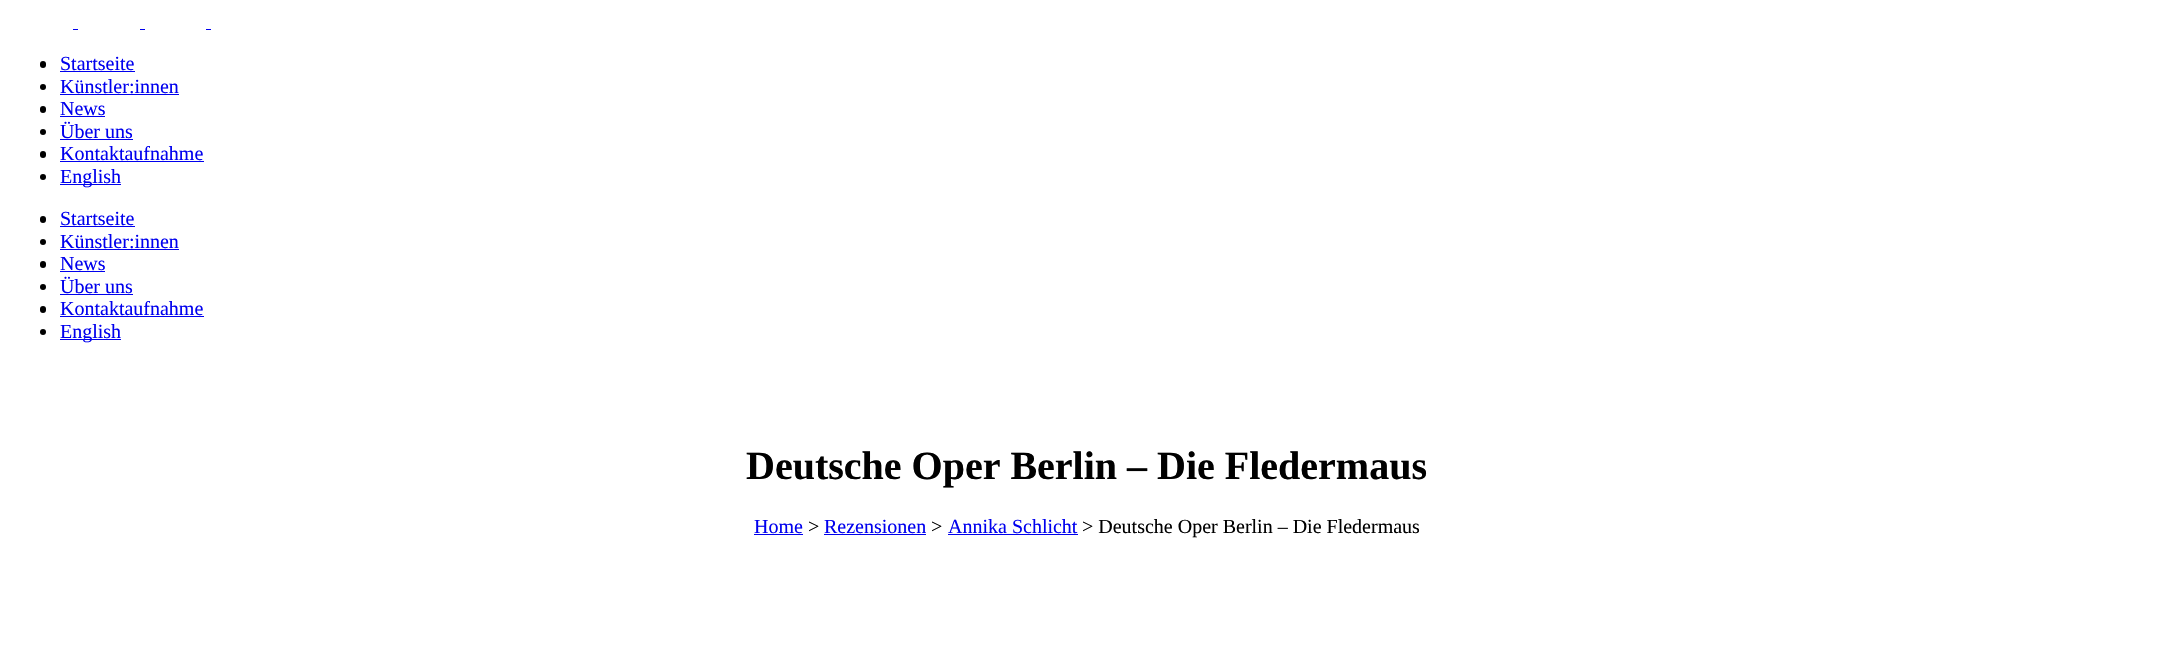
void draw(SkCanvas* canvas) {
	SkPaint paint;
	paint.setAntiAlias(true);
	canvas->clear(0xffffffff);
	paint.setColor(0xff0000ee);
	canvas->drawRect(SkRect::MakeXYWH(73, 29, 5, 1), paint);
	canvas->drawRect(SkRect::MakeXYWH(140, 29, 5, 1), paint);
	canvas->drawRect(SkRect::MakeXYWH(206, 29, 5, 1), paint);
	paint.setColor(0xff000000);
	canvas->drawRoundRect(SkRect::MakeXYWH(40, 61, 6, 7), 3, 3, paint);
	SkFont f1(fontMgr->matchFamilyStyle("Liberation Serif", SkFontStyle::Normal()), 20);
	f1.setSubpixel(true);
	paint.setColor(0xff0000ee);
	canvas->drawString("Startseite", 60, 70, f1, paint);
	canvas->drawRect(SkRect::MakeXYWH(60, 71, 75, 1), paint);
	paint.setColor(0xff000000);
	canvas->drawCircle(43, 87, 3, paint);
	paint.setColor(0xff0000ee);
	canvas->drawString("Künstler:innen", 60, 93, f1, paint);
	canvas->drawRect(SkRect::MakeXYWH(60, 94, 119, 1), paint);
	paint.setColor(0xff000000);
	canvas->drawRoundRect(SkRect::MakeXYWH(40, 106, 6, 7), 3, 3, paint);
	paint.setColor(0xff0000ee);
	canvas->drawString("News", 60, 115, f1, paint);
	canvas->drawRect(SkRect::MakeXYWH(60, 116, 45, 1), paint);
	paint.setColor(0xff000000);
	canvas->drawCircle(43, 132, 3, paint);
	paint.setColor(0xff0000ee);
	canvas->drawString("Über uns", 60, 138, f1, paint);
	canvas->drawRect(SkRect::MakeXYWH(60, 139, 73, 1), paint);
	paint.setColor(0xff000000);
	canvas->drawRoundRect(SkRect::MakeXYWH(40, 151, 6, 7), 3, 3, paint);
	paint.setColor(0xff0000ee);
	canvas->drawString("Kontaktaufnahme", 60, 160, f1, paint);
	canvas->drawRect(SkRect::MakeXYWH(60, 161, 144, 1), paint);
	paint.setColor(0xff000000);
	canvas->drawCircle(43, 177, 3, paint);
	paint.setColor(0xff0000ee);
	canvas->drawRect(SkRect::MakeXYWH(60, 184, 61, 1), paint);
	canvas->drawString("English", 60, 183, f1, paint);
	paint.setColor(0xff000000);
	canvas->drawRoundRect(SkRect::MakeXYWH(40, 216, 6, 7), 3, 3, paint);
	paint.setColor(0xff0000ee);
	canvas->drawString("Startseite", 60, 225, f1, paint);
	canvas->drawRect(SkRect::MakeXYWH(60, 226, 75, 1), paint);
	paint.setColor(0xff000000);
	canvas->drawCircle(43, 242, 3, paint);
	paint.setColor(0xff0000ee);
	canvas->drawString("Künstler:innen", 60, 248, f1, paint);
	canvas->drawRect(SkRect::MakeXYWH(60, 249, 119, 1), paint);
	paint.setColor(0xff000000);
	canvas->drawRoundRect(SkRect::MakeXYWH(40, 261, 6, 7), 3, 3, paint);
	paint.setColor(0xff0000ee);
	canvas->drawString("News", 60, 270, f1, paint);
	canvas->drawRect(SkRect::MakeXYWH(60, 271, 45, 1), paint);
	paint.setColor(0xff000000);
	canvas->drawCircle(43, 287, 3, paint);
	paint.setColor(0xff0000ee);
	canvas->drawString("Über uns", 60, 293, f1, paint);
	canvas->drawRect(SkRect::MakeXYWH(60, 294, 73, 1), paint);
	paint.setColor(0xff000000);
	canvas->drawRoundRect(SkRect::MakeXYWH(40, 306, 6, 7), 3, 3, paint);
	paint.setColor(0xff0000ee);
	canvas->drawString("Kontaktaufnahme", 60, 315, f1, paint);
	canvas->drawRect(SkRect::MakeXYWH(60, 316, 144, 1), paint);
	paint.setColor(0xff000000);
	canvas->drawCircle(43, 332, 3, paint);
	paint.setColor(0xff0000ee);
	canvas->drawRect(SkRect::MakeXYWH(60, 339, 61, 1), paint);
	canvas->drawString("English", 60, 338, f1, paint);
	SkFont f2(fontMgr->matchFamilyStyle("Liberation Serif", SkFontStyle::Bold()), 40);
	f2.setSubpixel(true);
	paint.setColor(0xff000000);
	canvas->drawString("Deutsche Oper Berlin – Die Fledermaus", 746, 479, f2, paint);
	paint.setColor(0xff0000ee);
	canvas->drawString("Home", 754, 533, f1, paint);
	canvas->drawRect(SkRect::MakeXYWH(754, 534, 49, 1), paint);
	paint.setColor(0xff000000);
	canvas->drawString(">", 808, 533, f1, paint);
	paint.setColor(0xff0000ee);
	canvas->drawString("Rezensionen", 824, 533, f1, paint);
	canvas->drawRect(SkRect::MakeXYWH(824, 534, 102, 1), paint);
	paint.setColor(0xff000000);
	canvas->drawString(">", 931, 533, f1, paint);
	paint.setColor(0xff0000ee);
	canvas->drawString("Annika Schlicht", 948, 533, f1, paint);
	canvas->drawRect(SkRect::MakeXYWH(948, 534, 130, 1), paint);
	paint.setColor(0xff000000);
	canvas->drawString("> Deutsche Oper Berlin – Die Fledermaus", 1082, 533, f1, paint);
}
